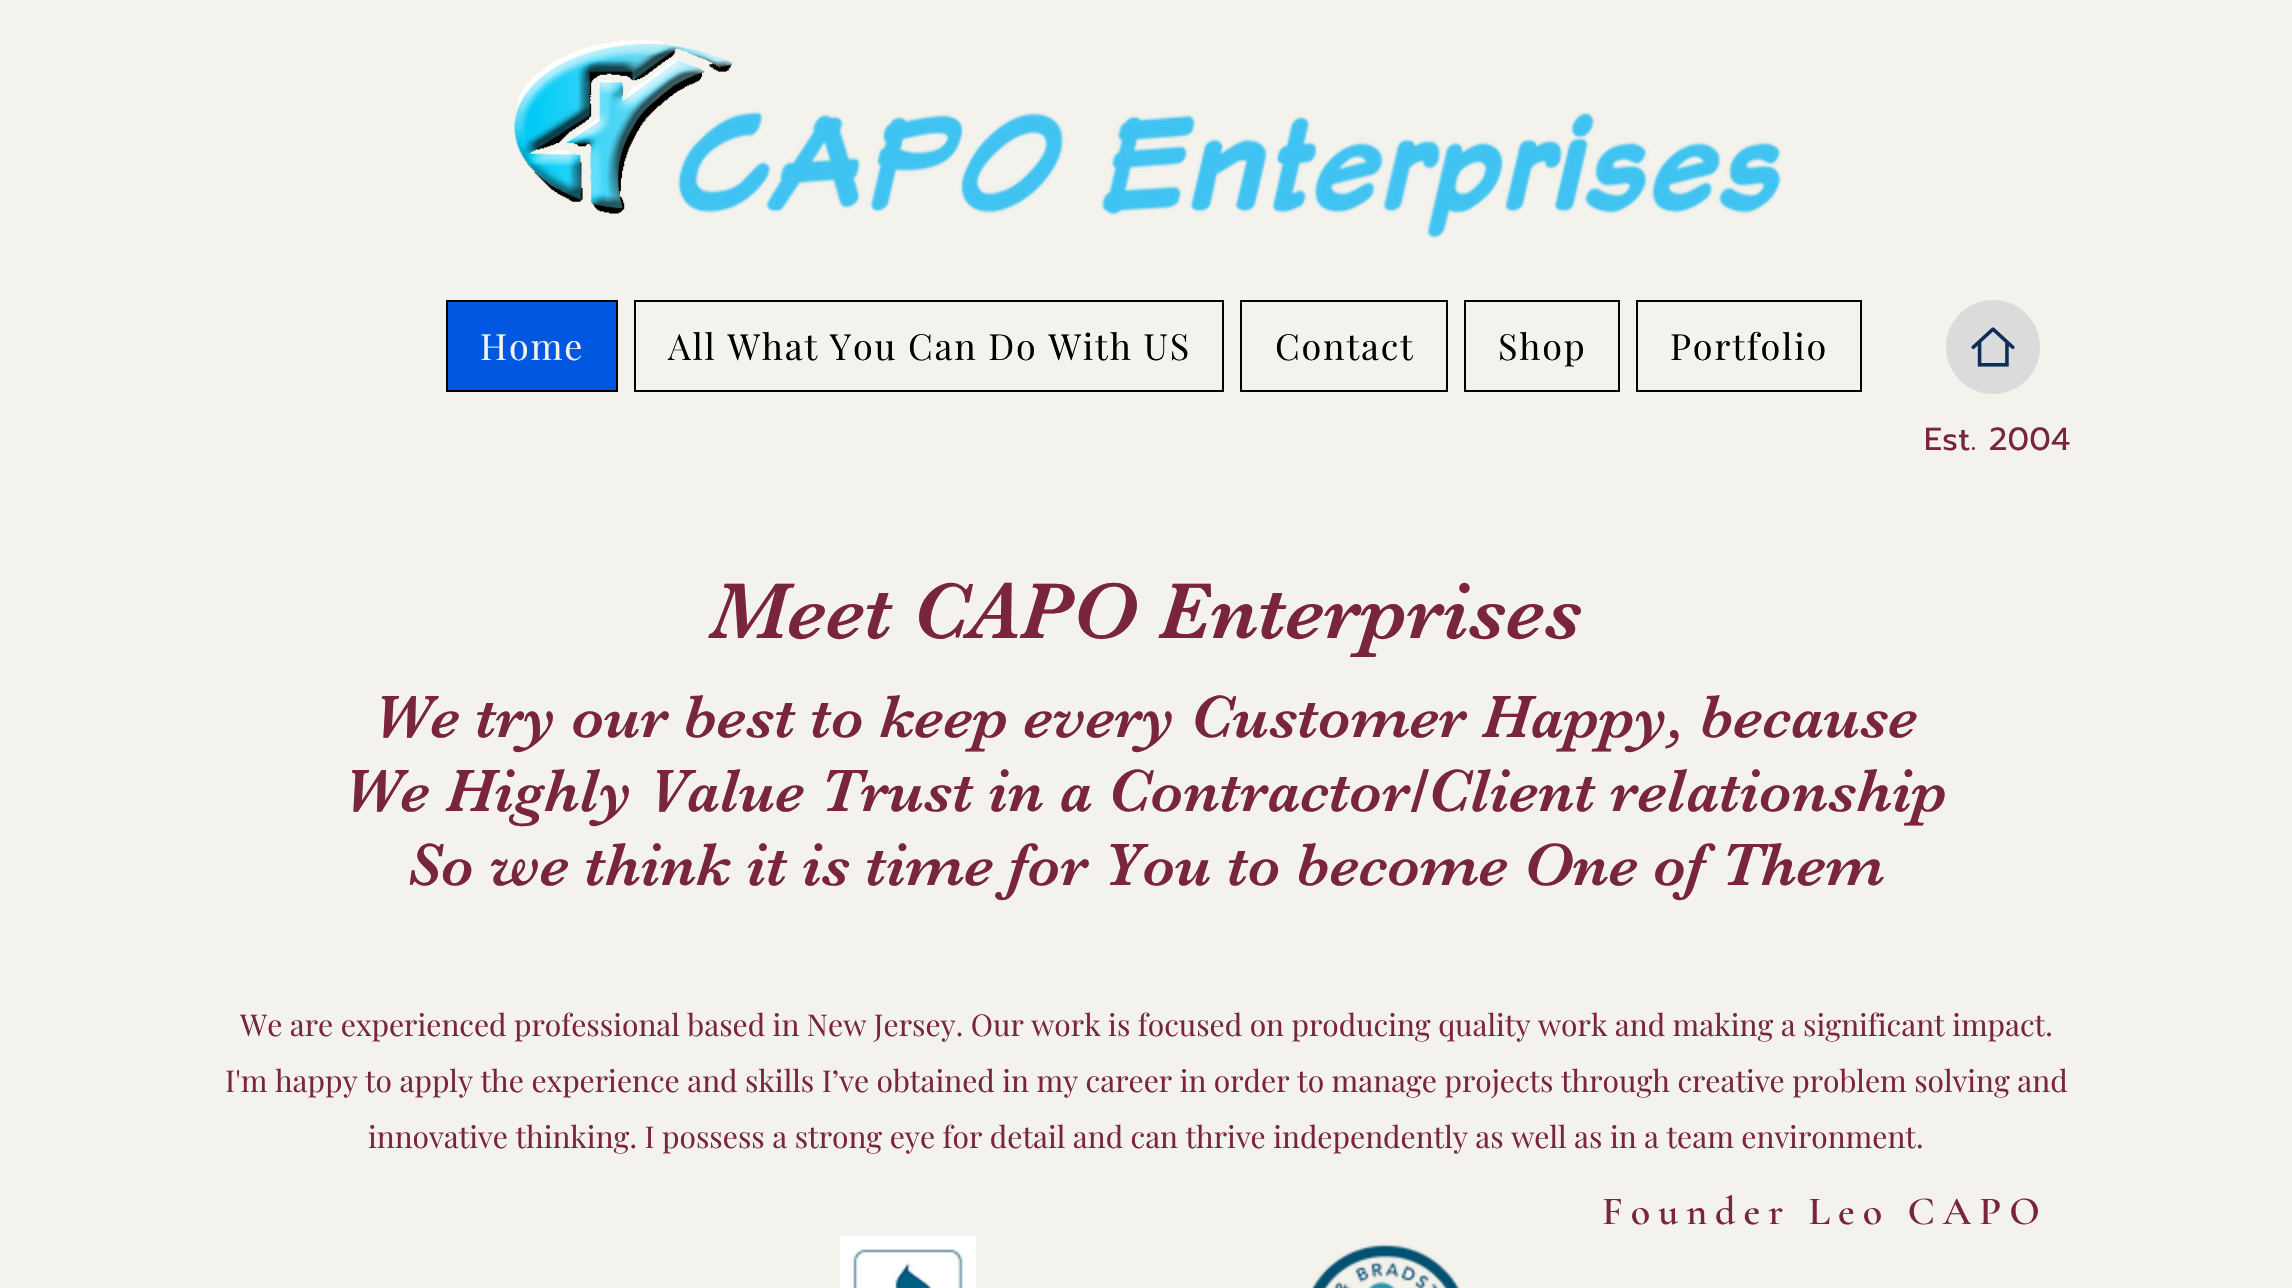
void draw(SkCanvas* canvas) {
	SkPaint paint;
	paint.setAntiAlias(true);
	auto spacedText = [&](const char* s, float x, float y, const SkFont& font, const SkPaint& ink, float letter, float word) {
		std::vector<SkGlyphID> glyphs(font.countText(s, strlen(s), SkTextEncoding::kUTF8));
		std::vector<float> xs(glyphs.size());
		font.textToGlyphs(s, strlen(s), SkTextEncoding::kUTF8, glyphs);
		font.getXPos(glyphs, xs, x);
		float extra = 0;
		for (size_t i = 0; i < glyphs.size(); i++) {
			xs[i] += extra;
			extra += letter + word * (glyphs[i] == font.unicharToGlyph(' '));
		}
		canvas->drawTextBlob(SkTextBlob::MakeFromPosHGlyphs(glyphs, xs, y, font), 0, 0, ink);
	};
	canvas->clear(0xfff4f2ec);
	canvas->drawImageRect(SkImages::DeferredFromEncodedData(SkData::MakeFromFileName("img2.png")), SkRect::MakeXYWH(677, 111, 1105, 128), SkSamplingOptions());
	canvas->drawImageRect(SkImages::DeferredFromEncodedData(SkData::MakeFromFileName("img1.png")), SkRect::MakeXYWH(514, 39, 218, 175), SkSamplingOptions());
	paint.setColor(0xff0057e1);
	canvas->drawRect(SkRect::MakeXYWH(447, 301, 170, 90), paint);
	paint.setStroke(true);
	paint.setStrokeWidth(2);
	paint.setColor(0xff000000);
	canvas->drawRect(SkRect::MakeXYWH(447, 301, 170, 90), paint);
	SkFont f1(fontMgr->matchFamilyStyle("Playfair Display", SkFontStyle::Normal()), 36);
	f1.setSubpixel(true);
	paint.setStroke(false);
	paint.setColor(0xfff4f2ec);
	spacedText("Home", 480, 360, f1, paint, 1.8, 0);
	paint.setStroke(true);
	paint.setColor(0xff000000);
	canvas->drawRect(SkRect::MakeXYWH(635, 301, 588, 90), paint);
	paint.setStroke(false);
	spacedText("All What You Can Do With US", 668, 360, f1, paint, 1.8, 0);
	paint.setStroke(true);
	canvas->drawRect(SkRect::MakeXYWH(1241, 301, 206, 90), paint);
	paint.setStroke(false);
	spacedText("Contact", 1275, 360, f1, paint, 1.8, 0);
	paint.setStroke(true);
	canvas->drawRect(SkRect::MakeXYWH(1465, 301, 154, 90), paint);
	paint.setStroke(false);
	spacedText("Shop", 1498, 360, f1, paint, 1.8, 0);
	paint.setStroke(true);
	canvas->drawRect(SkRect::MakeXYWH(1637, 301, 224, 90), paint);
	paint.setStroke(false);
	spacedText("Portfolio", 1670, 360, f1, paint, 1.8, 0);
	paint.setColor(0xffdbdbdb);
	canvas->drawCircle(1993, 347, 47, paint);
	canvas->drawImageRect(SkImages::DeferredFromEncodedData(SkData::MakeFromFileName("img3.png")), SkRect::MakeXYWH(1971, 327, 44, 40), SkSamplingOptions());
	SkFont f2(fontMgr->matchFamilyStyle("Prompt", SkFontStyle::Normal()), 32);
	f2.setSubpixel(true);
	paint.setColor(0xff79253d);
	spacedText("Est. 2004", 1924, 450, f2, paint, 0.25, 0);
	SkFont f3(fontMgr->matchFamilyStyle("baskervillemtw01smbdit", SkFontStyle::Normal()), 82);
	f3.setSubpixel(true);
	canvas->drawString("Meet CAPO Enterprises", 710, 638, f3, paint);
	SkFont f4(fontMgr->matchFamilyStyle("baskervillemtw01smbdit", SkFontStyle::Normal()), 62);
	f4.setSubpixel(true);
	canvas->drawString("We try our best to keep every Customer Happy, because", 374, 737, f4, paint);
	canvas->drawString("We Highly Value Trust in a Contractor/Client relationship", 344, 811, f4, paint);
	canvas->drawString("So we think it is time for You to become One of Them", 407, 885, f4, paint);
	SkFont f5(fontMgr->matchFamilyStyle("Playfair Display", SkFontStyle::Normal()), 30);
	f5.setSubpixel(true);
	canvas->drawString("We are experienced professional based in New Jersey. Our work is focused on producing quality work and making a significant impact.", 240, 1036, f5, paint);
	canvas->drawString("I'm happy to apply the experience and skills I’ve obtained in my career in order to manage projects through creative problem solving and", 225, 1092, f5, paint);
	canvas->drawString("innovative thinking. I possess a strong eye for detail and can thrive independently as well as in a team environment.", 368, 1148, f5, paint);
	SkFont f6(fontMgr->matchFamilyStyle("Cormorant Garamond", SkFontStyle(600, SkFontStyle::kNormal_Width, SkFontStyle::kUpright_Slant)), 40);
	f6.setSubpixel(true);
	spacedText("Founder Leo CAPO", 1602, 1224, f6, paint, 8, 0);
	canvas->drawImageRect(SkImages::DeferredFromEncodedData(SkData::MakeFromFileName("img4.png")), SkRect::MakeXYWH(840, 1236, 136, 52), SkSamplingOptions());
	canvas->drawImageRect(SkImages::DeferredFromEncodedData(SkData::MakeFromFileName("img5.png")), SkRect::MakeXYWH(1311, 1243, 149, 45), SkSamplingOptions());
}
